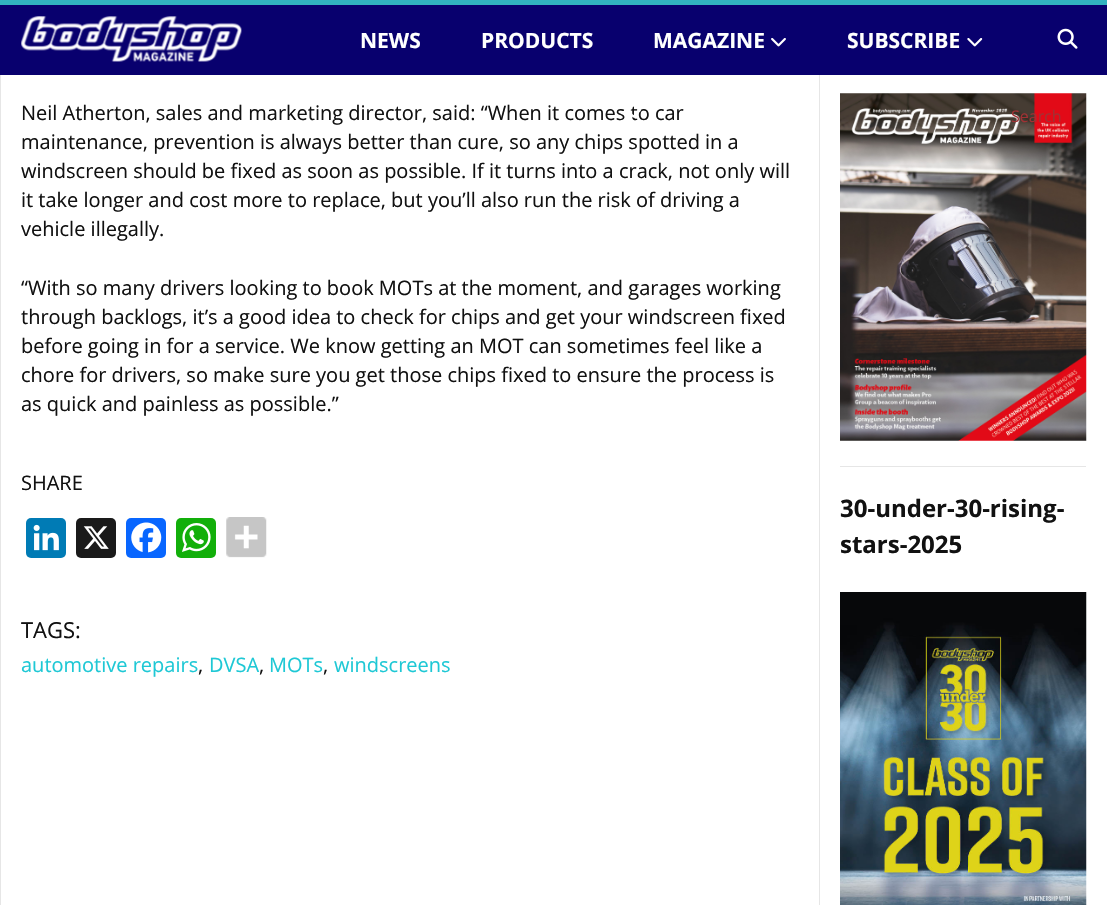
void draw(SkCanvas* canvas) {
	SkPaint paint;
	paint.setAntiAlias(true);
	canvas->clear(0xffffffff);
	paint.setStroke(true);
	paint.setStrokeWidth(1);
	paint.setColor(0xffe6e6e6);
	canvas->drawRect(SkRect::MakeXYWH(0.5, -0.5, 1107, 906), paint);
	paint.setStroke(false);
	paint.setColor(0xff08006e);
	canvas->drawRect(SkRect::MakeXYWH(0, 5, 1107, 70), paint);
	canvas->drawImageRect(SkImages::DeferredFromEncodedData(SkData::MakeFromFileName("img1.png")), SkRect::MakeXYWH(21, 16, 221, 46), SkSamplingOptions());
	paint.setColor(0xff32b3c0);
	canvas->drawRect(SkRect::MakeXYWH(0, 0, 1107, 5), paint);
	SkFont f1(fontMgr->matchFamilyStyle("Open Sans", SkFontStyle::Bold()), 21);
	f1.setSubpixel(true);
	paint.setColor(0xffffffff);
	canvas->drawString("NEWS", 360, 48, f1, paint);
	canvas->drawString("PRODUCTS", 481, 48, f1, paint);
	canvas->drawString("MAGAZINE", 653, 48, f1, paint);
	canvas->drawImageRect(SkImages::DeferredFromEncodedData(SkData::MakeFromFileName("img2.png")), SkRect::MakeXYWH(771, 38, 15, 9), SkSamplingOptions());
	canvas->drawString("SUBSCRIBE", 847, 48, f1, paint);
	canvas->drawImageRect(SkImages::DeferredFromEncodedData(SkData::MakeFromFileName("img3.png")), SkRect::MakeXYWH(967, 38, 16, 9), SkSamplingOptions());
	SkFont f2(fontMgr->matchFamilyStyle("Open Sans", SkFontStyle::Normal()), 20);
	f2.setSubpixel(true);
	paint.setColor(0xff111111);
	canvas->drawString("Neil Atherton, sales and marketing director, said: “When it comes to car", 21, 120, f2, paint);
	canvas->drawImageRect(SkImages::DeferredFromEncodedData(SkData::MakeFromFileName("img4.png")), SkRect::MakeXYWH(632, 110, 9, 8), SkSamplingOptions());
	canvas->drawImageRect(SkImages::DeferredFromEncodedData(SkData::MakeFromFileName("img5.png")), SkRect::MakeXYWH(1057, 28, 21, 21), SkSamplingOptions());
	canvas->drawImageRect(SkImages::DeferredFromEncodedData(SkData::MakeFromFileName("img11.png")), SkRect::MakeXYWH(840, 93, 247, 348), SkSamplingOptions());
	SkFont f3(fontMgr->matchFamilyStyle("Open Sans", SkFontStyle::Normal()), 16);
	f3.setSubpixel(true);
	paint.setColor(0xffa03134);
	canvas->drawString("Search", 1011, 122, f3, paint);
	paint.setColor(0xffe6e6e6);
	canvas->drawRect(SkRect::MakeXYWH(819, 75, 1, 830), paint);
	paint.setColor(0xff111111);
	canvas->drawString("maintenance, prevention is always better than cure, so any chips spotted in a", 21, 149, f2, paint);
	canvas->drawString("windscreen should be fixed as soon as possible. If it turns into a crack, not only will", 21, 178, f2, paint);
	canvas->drawString("it take longer and cost more to replace, but you’ll also run the risk of driving a", 21, 207, f2, paint);
	canvas->drawString("vehicle illegally.", 21, 236, f2, paint);
	canvas->drawString("“With so many drivers looking to book MOTs at the moment, and garages working", 21, 295, f2, paint);
	canvas->drawString("through backlogs, it’s a good idea to check for chips and get your windscreen fixed", 21, 324, f2, paint);
	canvas->drawString("before going in for a service. We know getting an MOT can sometimes feel like a", 21, 353, f2, paint);
	canvas->drawString("chore for drivers, so make sure you get those chips fixed to ensure the process is", 21, 382, f2, paint);
	canvas->drawString("as quick and painless as possible.”", 21, 411, f2, paint);
	canvas->drawString("SHARE", 21, 490, f2, paint);
	paint.setColor(0xff007bb5);
	canvas->drawRoundRect(SkRect::MakeXYWH(26, 518, 40, 40), 5, 5, paint);
	canvas->drawImageRect(SkImages::DeferredFromEncodedData(SkData::MakeFromFileName("img6.png")), SkRect::MakeXYWH(33, 524, 26, 27), SkSamplingOptions());
	paint.setColor(0xff1a1a1a);
	canvas->drawRoundRect(SkRect::MakeXYWH(76, 518, 40, 40), 5, 5, paint);
	canvas->drawImageRect(SkImages::DeferredFromEncodedData(SkData::MakeFromFileName("img7.png")), SkRect::MakeXYWH(83, 526, 26, 23), SkSamplingOptions());
	paint.setColor(0xff0866ff);
	canvas->drawRoundRect(SkRect::MakeXYWH(126, 518, 40, 40), 5, 5, paint);
	canvas->drawImageRect(SkImages::DeferredFromEncodedData(SkData::MakeFromFileName("img8.png")), SkRect::MakeXYWH(131, 522, 31, 31), SkSamplingOptions());
	paint.setColor(0xff12af0a);
	canvas->drawRoundRect(SkRect::MakeXYWH(176, 518, 40, 40), 5, 5, paint);
	canvas->drawImageRect(SkImages::DeferredFromEncodedData(SkData::MakeFromFileName("img9.png")), SkRect::MakeXYWH(182, 523, 29, 29), SkSamplingOptions());
	canvas->drawImageRect(SkImages::DeferredFromEncodedData(SkData::MakeFromFileName("img10.png")), SkRect::MakeXYWH(226, 517, 41, 41), SkSamplingOptions());
	SkFont f4(fontMgr->matchFamilyStyle("Open Sans", SkFontStyle::Normal()), 22);
	f4.setSubpixel(true);
	paint.setColor(0xff111111);
	canvas->drawString("TAGS:", 21, 638, f4, paint);
	paint.setColor(0xff1ec8d5);
	canvas->drawString("automotive repairs", 21, 672, f2, paint);
	paint.setColor(0xff111111);
	canvas->drawString(",", 198, 672, f2, paint);
	paint.setColor(0xff1ec8d5);
	canvas->drawString("DVSA", 209, 672, f2, paint);
	paint.setColor(0xff111111);
	canvas->drawString(",", 259, 672, f2, paint);
	paint.setColor(0xff1ec8d5);
	canvas->drawString("MOTs", 269, 672, f2, paint);
	paint.setColor(0xff111111);
	canvas->drawString(",", 323, 672, f2, paint);
	paint.setColor(0xff1ec8d5);
	canvas->drawString("windscreens", 334, 672, f2, paint);
	paint.setColor(0xffe6e6e6);
	canvas->drawRect(SkRect::MakeXYWH(840, 466, 246, 1), paint);
	SkFont f5(fontMgr->matchFamilyStyle("Open Sans", SkFontStyle::Bold()), 24);
	f5.setSubpixel(true);
	paint.setColor(0xff111111);
	canvas->drawString("30-under-30-rising-", 840, 517, f5, paint);
	canvas->drawString("stars-2025", 840, 553, f5, paint);
	canvas->drawImageRect(SkImages::DeferredFromEncodedData(SkData::MakeFromFileName("img12.png")), SkRect::MakeXYWH(840, 592, 247, 313), SkSamplingOptions());
}
